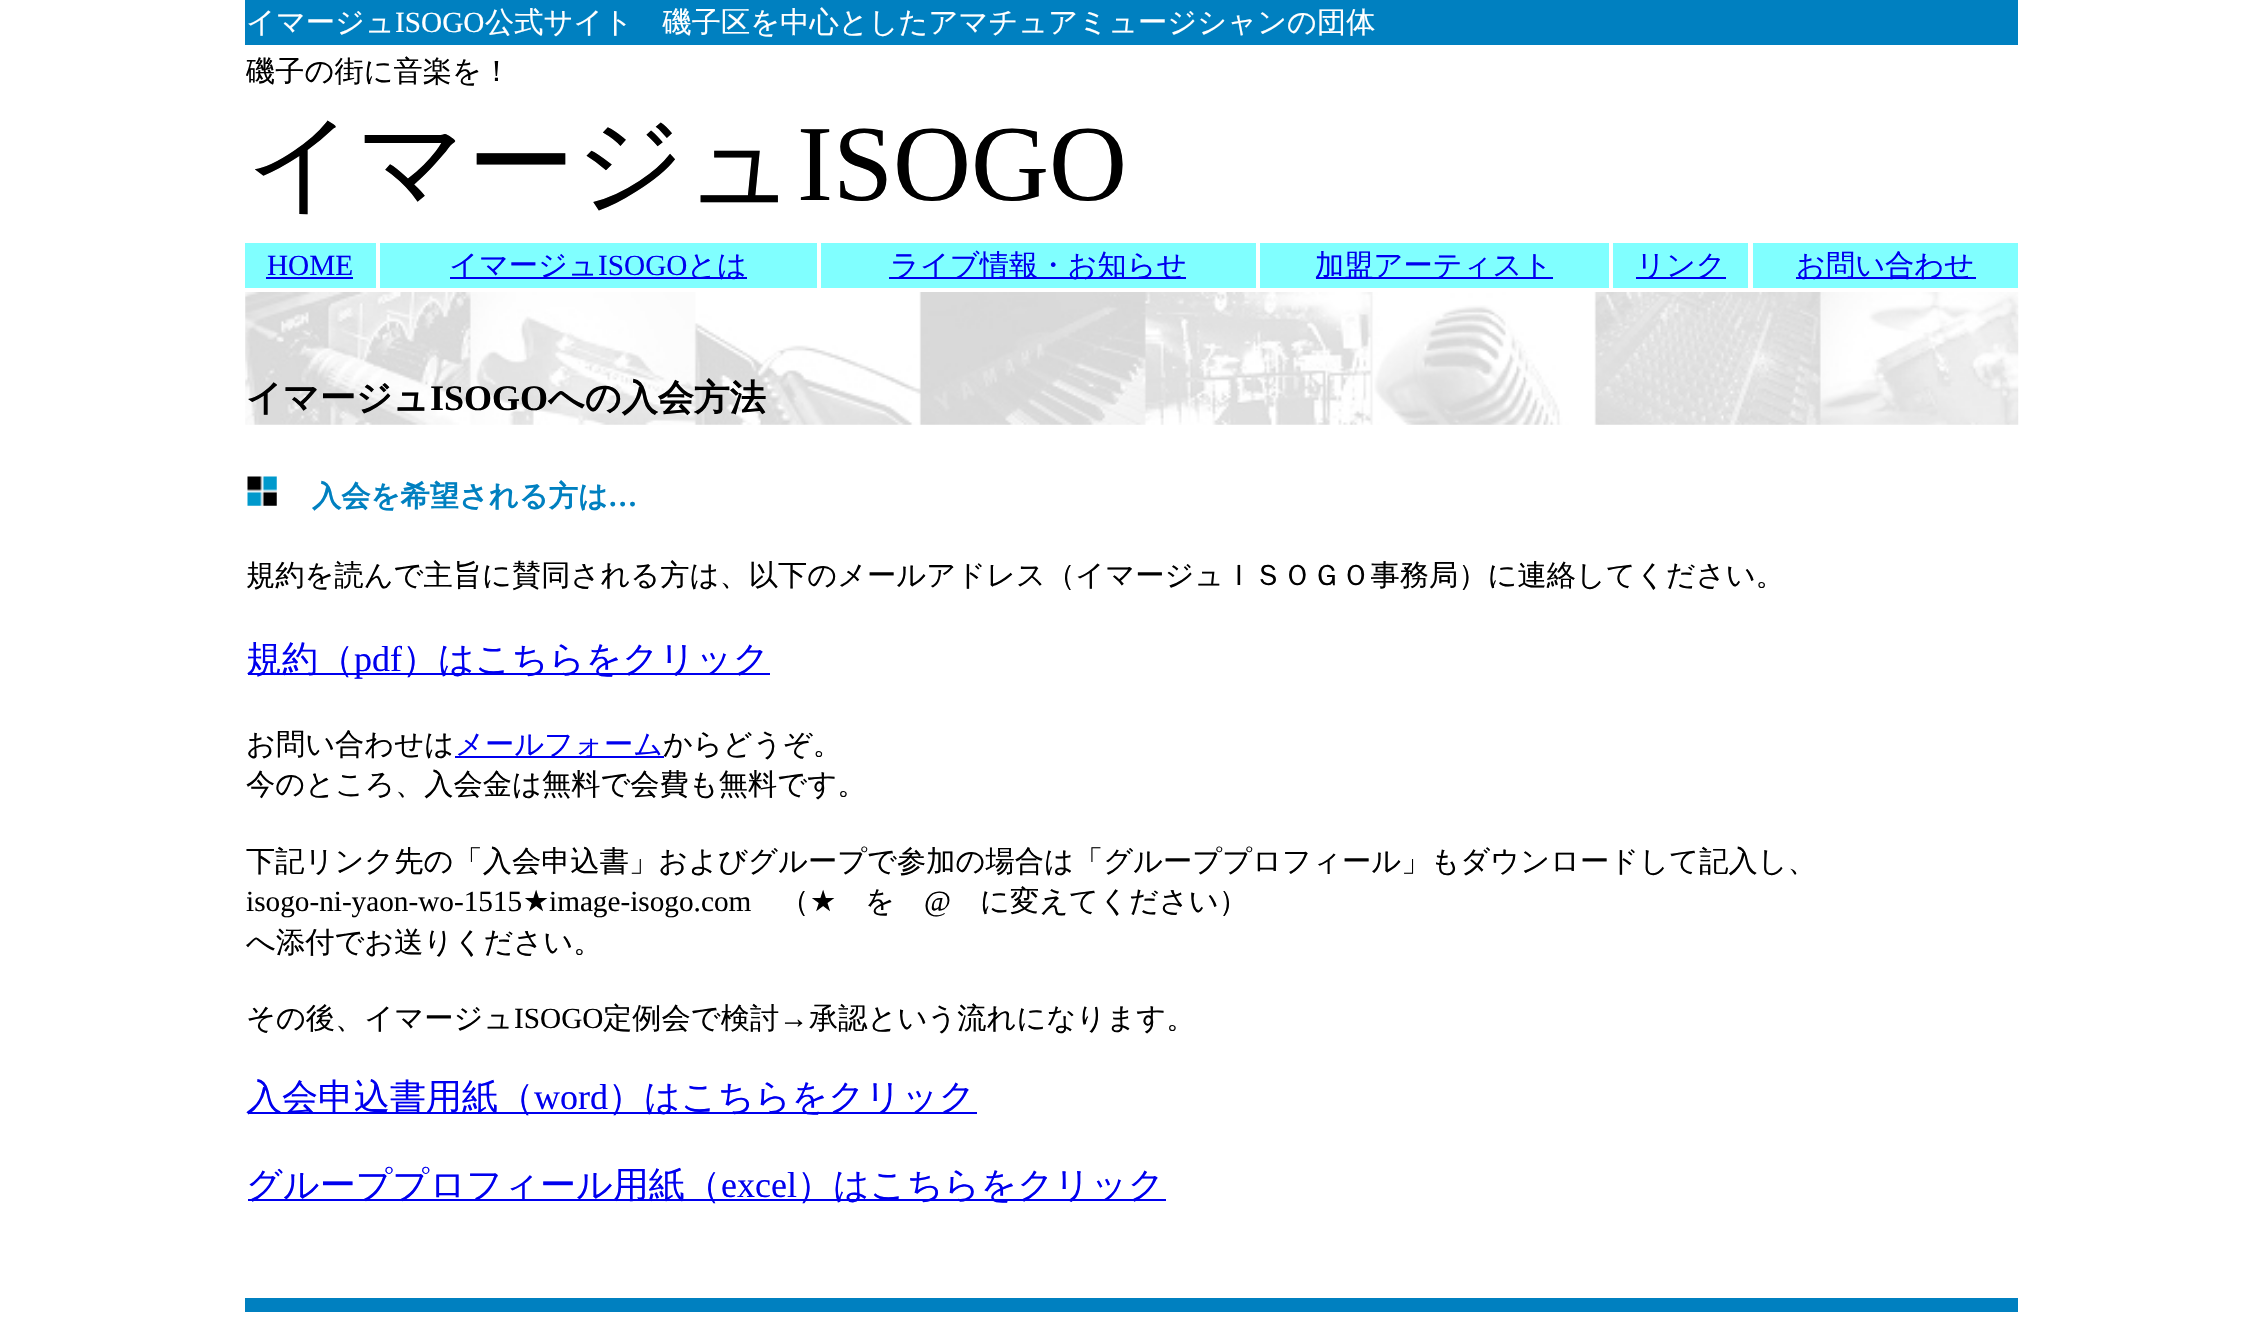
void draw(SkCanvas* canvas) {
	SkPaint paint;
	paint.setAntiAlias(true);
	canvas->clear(0xffffffff);
	paint.setColor(0xff0080c0);
	canvas->drawRect(SkRect::MakeXYWH(245, 0, 1773, 45), paint);
	SkFont f1(fontMgr->matchFamilyStyle("WenQuanYi Zen Hei", SkFontStyle(500, SkFontStyle::kNormal_Width, SkFontStyle::kUpright_Slant)), 29.25);
	f1.setSubpixel(true);
	paint.setColor(0xffffffff);
	canvas->drawString("イマージュ", 246, 32, f1, paint);
	SkFont f2(fontMgr->matchFamilyStyle("Liberation Serif", SkFontStyle::Normal()), 29.25);
	f2.setSubpixel(true);
	canvas->drawString("ISOGO", 395, 32, f2, paint);
	canvas->drawString("公式サイト　磯子区を中心としたアマチュアミュージシャンの団体", 485, 32, f1, paint);
	paint.setColor(0xff000000);
	canvas->drawString("磯子の街に音楽を！", 246, 81, f1, paint);
	SkFont f3(fontMgr->matchFamilyStyle("WenQuanYi Zen Hei", SkFontStyle(500, SkFontStyle::kNormal_Width, SkFontStyle::kUpright_Slant)), 108);
	f3.setSubpixel(true);
	canvas->drawString("イマージュ", 246, 200, f3, paint);
	SkFont f4(fontMgr->matchFamilyStyle("Liberation Serif", SkFontStyle::Normal()), 108);
	f4.setSubpixel(true);
	canvas->drawString("ISOGO", 797, 200, f4, paint);
	paint.setColor(0xff80ffff);
	canvas->drawRect(SkRect::MakeXYWH(245, 243, 131, 45), paint);
	paint.setColor(0xff0000ee);
	canvas->drawString("HOME", 267, 275, f2, paint);
	canvas->drawRect(SkRect::MakeXYWH(266, 277, 87, 2), paint);
	paint.setColor(0xff80ffff);
	canvas->drawRect(SkRect::MakeXYWH(380, 243, 437, 45), paint);
	paint.setColor(0xff0000ee);
	canvas->drawRect(SkRect::MakeXYWH(450, 277, 297, 2), paint);
	canvas->drawString("イマージュ", 449, 275, f1, paint);
	canvas->drawString("ISOGO", 598, 275, f2, paint);
	canvas->drawString("とは", 687, 275, f1, paint);
	paint.setColor(0xff80ffff);
	canvas->drawRect(SkRect::MakeXYWH(821, 243, 435, 45), paint);
	paint.setColor(0xff0000ee);
	canvas->drawRect(SkRect::MakeXYWH(889, 277, 297, 2), paint);
	canvas->drawString("ライブ情報・お知らせ", 890, 275, f1, paint);
	paint.setColor(0xff80ffff);
	canvas->drawRect(SkRect::MakeXYWH(1260, 243, 349, 45), paint);
	paint.setColor(0xff0000ee);
	canvas->drawRect(SkRect::MakeXYWH(1316, 277, 237, 2), paint);
	canvas->drawString("加盟アーティスト", 1315, 275, f1, paint);
	paint.setColor(0xff80ffff);
	canvas->drawRect(SkRect::MakeXYWH(1613, 243, 135, 45), paint);
	paint.setColor(0xff0000ee);
	canvas->drawRect(SkRect::MakeXYWH(1636, 277, 90, 2), paint);
	canvas->drawString("リンク", 1636, 275, f1, paint);
	paint.setColor(0xff80ffff);
	canvas->drawRect(SkRect::MakeXYWH(1753, 243, 265, 45), paint);
	paint.setColor(0xff0000ee);
	canvas->drawRect(SkRect::MakeXYWH(1796, 277, 180, 2), paint);
	canvas->drawString("お問い合わせ", 1796, 275, f1, paint);
	canvas->drawImageRect(SkImages::DeferredFromEncodedData(SkData::MakeFromFileName("img1.png")), SkRect::MakeXYWH(245, 292, 1774, 133), SkSamplingOptions());
	SkFont f5(fontMgr->matchFamilyStyle("WenQuanYi Zen Hei", SkFontStyle::Bold()), 36);
	f5.setSubpixel(true);
	paint.setColor(0xff000000);
	canvas->drawString("イマージュ", 246, 410, f5, paint);
	SkFont f6(fontMgr->matchFamilyStyle("Liberation Serif", SkFontStyle::Bold()), 36);
	f6.setSubpixel(true);
	canvas->drawString("ISOGO", 430, 410, f6, paint);
	canvas->drawString("への入会方法", 548, 410, f5, paint);
	canvas->drawImageRect(SkImages::DeferredFromEncodedData(SkData::MakeFromFileName("img2.png")), SkRect::MakeXYWH(247, 476, 30, 30), SkSamplingOptions());
	SkFont f7(fontMgr->matchFamilyStyle("WenQuanYi Zen Hei", SkFontStyle::Bold()), 29.25);
	f7.setSubpixel(true);
	paint.setColor(0xff0080c0);
	canvas->drawString("入会を希望される方は", 312, 506, f7, paint);
	SkFont f8(fontMgr->matchFamilyStyle("Liberation Serif", SkFontStyle::Bold()), 29.25);
	f8.setSubpixel(true);
	canvas->drawString("…", 608, 506, f8, paint);
	paint.setColor(0xff000000);
	canvas->drawString("規約を読んで主旨に賛同される方は、以下のメールアドレス（イマージュＩＳＯＧＯ事務局）に連絡してください。", 246, 585, f1, paint);
	paint.setColor(0xff0000ee);
	canvas->drawRect(SkRect::MakeXYWH(248, 673, 522, 2), paint);
	SkFont f9(fontMgr->matchFamilyStyle("WenQuanYi Zen Hei", SkFontStyle(500, SkFontStyle::kNormal_Width, SkFontStyle::kUpright_Slant)), 36);
	f9.setSubpixel(true);
	canvas->drawString("規約（", 246, 671, f9, paint);
	SkFont f10(fontMgr->matchFamilyStyle("Liberation Serif", SkFontStyle::Normal()), 36);
	f10.setSubpixel(true);
	canvas->drawString("pdf", 354, 671, f10, paint);
	canvas->drawString("）はこちらをクリック", 402, 671, f9, paint);
	paint.setColor(0xff000000);
	canvas->drawString("お問い合わせは", 246, 754, f1, paint);
	paint.setColor(0xff0000ee);
	canvas->drawRect(SkRect::MakeXYWH(455, 756, 209, 2), paint);
	canvas->drawString("メールフォーム", 455, 754, f1, paint);
	paint.setColor(0xff000000);
	canvas->drawString("からどうぞ。", 663, 754, f1, paint);
	canvas->drawString("今のところ、入会金は無料で会費も無料です。", 246, 794, f1, paint);
	canvas->drawString("下記リンク先の「入会申込書」およびグループで参加の場合は「グループプロフィール」もダウンロードして記入し、", 246, 871, f1, paint);
	canvas->drawString("isogo-ni-yaon-wo-1515", 246, 911, f2, paint);
	SkFont f11(fontMgr->matchFamilyStyle("DejaVu Sans", SkFontStyle::Normal()), 29.25);
	f11.setSubpixel(true);
	canvas->drawString("★", 523, 911, f11, paint);
	canvas->drawString("image-isogo.com", 549, 911, f2, paint);
	canvas->drawString("（", 780, 911, f1, paint);
	canvas->drawString("★", 810, 911, f11, paint);
	canvas->drawString("を", 865, 911, f1, paint);
	canvas->drawString("@", 924, 911, f2, paint);
	canvas->drawString("に変えてください）", 980, 911, f1, paint);
	canvas->drawString("へ添付でお送りください。", 246, 952, f1, paint);
	canvas->drawString("その後、イマージュ", 246, 1028, f1, paint);
	canvas->drawString("ISOGO", 514, 1028, f2, paint);
	canvas->drawString("定例会で検討", 603, 1028, f1, paint);
	canvas->drawString("→", 779, 1028, f2, paint);
	canvas->drawString("承認という流れになります。", 809, 1028, f1, paint);
	paint.setColor(0xff0000ee);
	canvas->drawRect(SkRect::MakeXYWH(248, 1112, 729, 2), paint);
	canvas->drawString("入会申込書用紙（", 246, 1109, f9, paint);
	canvas->drawString("word", 534, 1109, f10, paint);
	canvas->drawString("）はこちらをクリック", 608, 1109, f9, paint);
	canvas->drawRect(SkRect::MakeXYWH(248, 1199, 918, 2), paint);
	canvas->drawString("グループプロフィール用紙（", 246, 1197, f9, paint);
	canvas->drawString("excel", 721, 1197, f10, paint);
	canvas->drawString("）はこちらをクリック", 797, 1197, f9, paint);
	paint.setColor(0xff0080c0);
	canvas->drawRect(SkRect::MakeXYWH(245, 1298, 1773, 14), paint);
}
